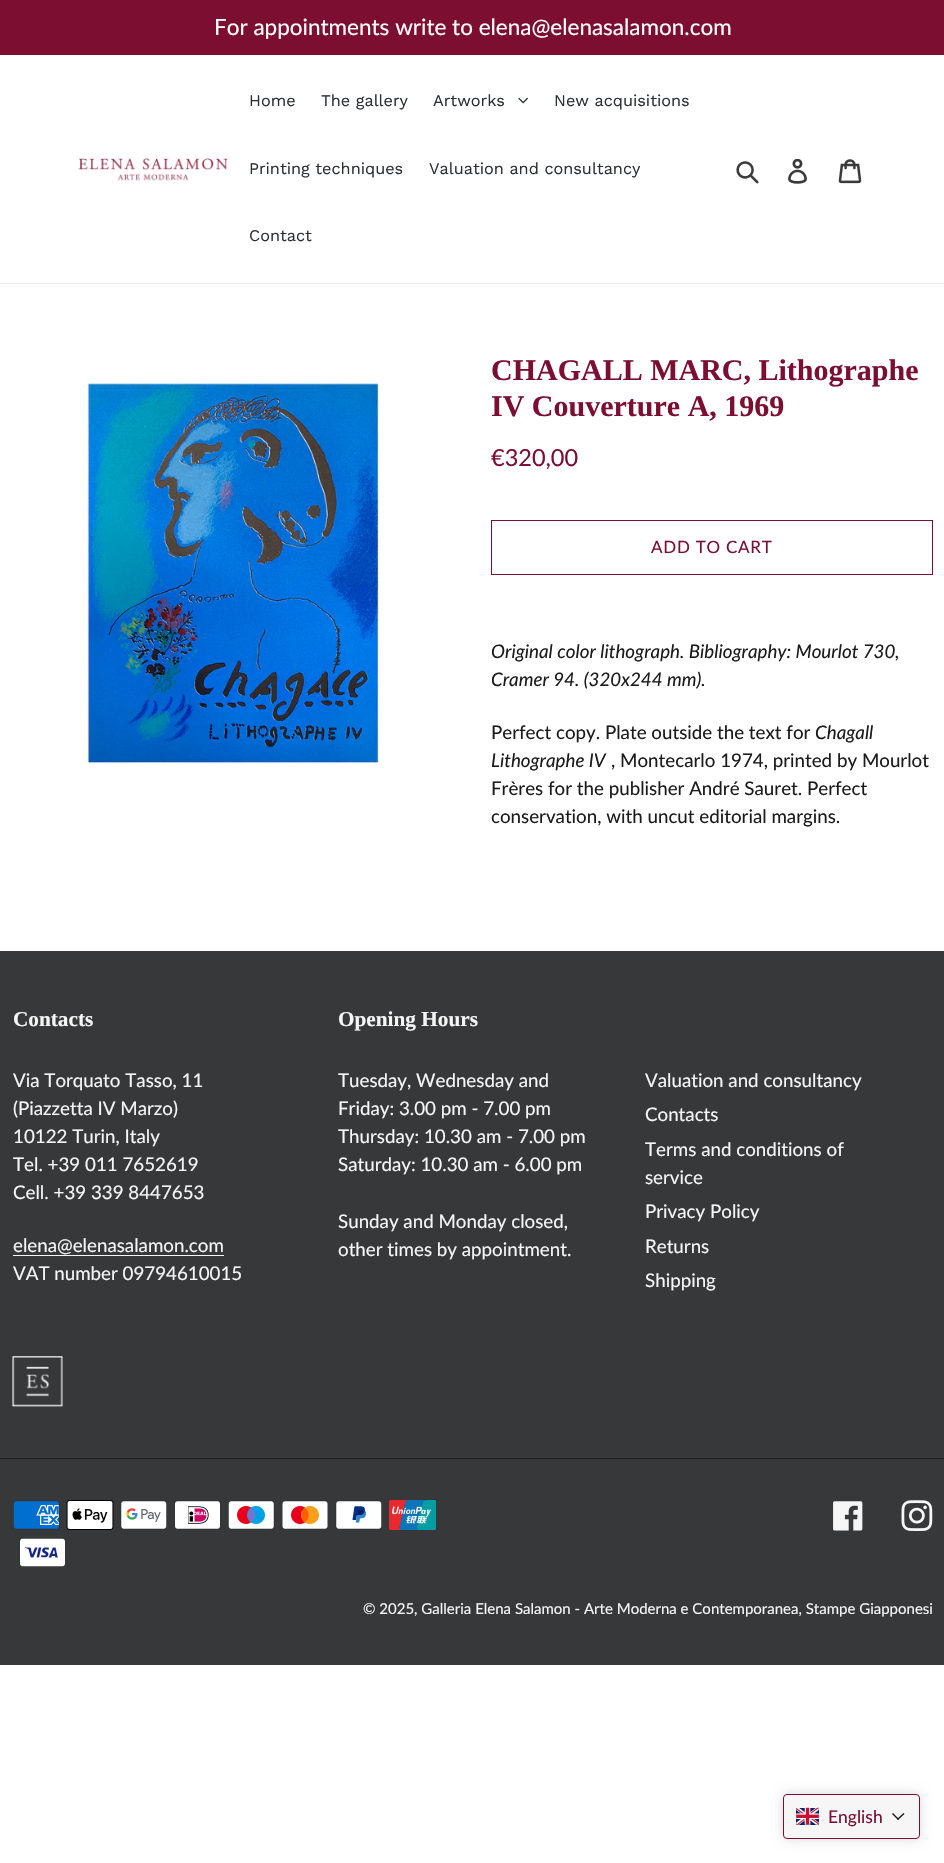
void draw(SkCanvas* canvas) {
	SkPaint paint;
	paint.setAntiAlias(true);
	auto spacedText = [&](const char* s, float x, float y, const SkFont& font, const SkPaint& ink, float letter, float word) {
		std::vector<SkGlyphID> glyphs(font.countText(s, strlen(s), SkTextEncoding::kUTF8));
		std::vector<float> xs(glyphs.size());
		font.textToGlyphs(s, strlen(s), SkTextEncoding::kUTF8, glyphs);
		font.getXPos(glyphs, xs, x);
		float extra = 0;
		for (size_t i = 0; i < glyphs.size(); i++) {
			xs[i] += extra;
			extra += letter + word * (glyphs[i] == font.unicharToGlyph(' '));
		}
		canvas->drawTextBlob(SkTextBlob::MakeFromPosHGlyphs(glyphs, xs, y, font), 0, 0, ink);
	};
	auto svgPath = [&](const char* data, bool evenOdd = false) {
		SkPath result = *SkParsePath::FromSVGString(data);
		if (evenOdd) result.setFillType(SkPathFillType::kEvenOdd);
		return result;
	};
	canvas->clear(0xffffffff);
	paint.setColor(0xff7c0f31);
	canvas->drawRect(SkRect::MakeXYWH(0, 0, 944, 55), paint);
	SkFont f1(fontMgr->matchFamilyStyle("Lato", SkFontStyle::Normal()), 22.5);
	f1.setSubpixel(true);
	paint.setColor(0xffffffff);
	canvas->drawString("For appointments write to elena@elenasalamon.com", 214, 35, f1, paint);
	paint.setColor(0xffebebeb);
	canvas->drawRect(SkRect::MakeXYWH(0, 283, 944, 1), paint);
	canvas->drawImageRect(SkImages::DeferredFromEncodedData(SkData::MakeFromFileName("img1.png")), SkRect::MakeXYWH(78, 156, 150, 25), SkSamplingOptions());
	SkFont f2(fontMgr->matchFamilyStyle("Work Sans", SkFontStyle::Normal()), 16.25);
	f2.setSubpixel(true);
	paint.setColor(0xff2b2e32);
	canvas->drawString("Home", 249, 106, f2, paint);
	canvas->drawString("The gallery", 321, 106, f2, paint);
	canvas->drawString("Artworks", 433, 106, f2, paint);
	canvas->drawImageRect(SkImages::DeferredFromEncodedData(SkData::MakeFromFileName("img2.png")), SkRect::MakeXYWH(518, 97, 10, 7), SkSamplingOptions());
	canvas->drawString("New acquisitions", 554, 106, f2, paint);
	canvas->drawString("Printing techniques", 249, 174, f2, paint);
	canvas->drawString("Valuation and consultancy", 429, 174, f2, paint);
	canvas->drawString("Contact", 249, 241, f2, paint);
	canvas->drawImageRect(SkImages::DeferredFromEncodedData(SkData::MakeFromFileName("img3.png")), SkRect::MakeXYWH(736, 161, 23, 23), SkSamplingOptions());
	canvas->drawImageRect(SkImages::DeferredFromEncodedData(SkData::MakeFromFileName("img4.png")), SkRect::MakeXYWH(788, 159, 19, 25), SkSamplingOptions());
	canvas->drawImageRect(SkImages::DeferredFromEncodedData(SkData::MakeFromFileName("img5.png")), SkRect::MakeXYWH(838, 159, 24, 25), SkSamplingOptions());
	canvas->drawImageRect(SkImages::DeferredFromEncodedData(SkData::MakeFromFileName("img6.png")), SkRect::MakeXYWH(84, 379, 295, 386), SkSamplingOptions());
	SkFont f3(fontMgr->matchFamilyStyle("Liberation Serif", SkFontStyle::Bold()), 30);
	f3.setSubpixel(true);
	paint.setColor(0xff7c0f31);
	canvas->drawString("CHAGALL MARC, Lithographe", 491, 380, f3, paint);
	canvas->drawString("IV Couverture A, 1969", 491, 416, f3, paint);
	SkFont f4(fontMgr->matchFamilyStyle("Lato", SkFontStyle::Normal()), 23.5);
	f4.setSubpixel(true);
	canvas->drawString("€320,00", 491, 466, f4, paint);
	paint.setStroke(true);
	paint.setStrokeWidth(1);
	canvas->drawRect(SkRect::MakeXYWH(491.5, 520.5, 441, 54), paint);
	SkFont f5(fontMgr->matchFamilyStyle("Lato", SkFontStyle::Normal()), 17);
	f5.setSubpixel(true);
	paint.setStroke(false);
	spacedText("ADD TO CART", 651, 553, f5, paint, 0.75, 0);
	SkFont f6(fontMgr->matchFamilyStyle("Lato", SkFontStyle::Italic()), 18.75);
	f6.setSubpixel(true);
	paint.setColor(0xff1b1b1b);
	canvas->drawString("Original color lithograph. Bibliography: Mourlot 730,", 491, 658, f6, paint);
	canvas->drawString("Cramer 94. (320x244 mm).", 491, 686, f6, paint);
	SkFont f7(fontMgr->matchFamilyStyle("Lato", SkFontStyle::Normal()), 18.75);
	f7.setSubpixel(true);
	canvas->drawString("Perfect copy. Plate outside the text for", 491, 739, f7, paint);
	canvas->drawString("Chagall", 815, 739, f6, paint);
	canvas->drawString("Lithographe IV", 491, 767, f6, paint);
	canvas->drawString(", Montecarlo 1974, printed by Mourlot", 611, 767, f7, paint);
	canvas->drawString("Frères for the publisher André Sauret. Perfect", 491, 795, f7, paint);
	canvas->drawString("conservation, with uncut editorial margins.", 491, 823, f7, paint);
	paint.setColor(0xff363839);
	canvas->drawRect(SkRect::MakeXYWH(0, 951, 944, 714), paint);
	SkFont f8(fontMgr->matchFamilyStyle("Liberation Serif", SkFontStyle::Bold()), 21.25);
	f8.setSubpixel(true);
	paint.setColor(0xfff6f6f6);
	canvas->drawString("Contacts", 13, 1026, f8, paint);
	canvas->drawString("Via Torquato Tasso, 11", 13, 1087, f7, paint);
	canvas->drawString("(Piazzetta IV Marzo)", 13, 1115, f7, paint);
	canvas->drawString("10122 Turin, Italy", 13, 1143, f7, paint);
	canvas->drawString("Tel. +39 011 7652619", 13, 1171, f7, paint);
	canvas->drawString("Cell. +39 339 8447653", 13, 1199, f7, paint);
	canvas->drawString("elena@elenasalamon.com", 13, 1252, f7, paint);
	canvas->drawRect(SkRect::MakeXYWH(13, 1255, 211, 1), paint);
	canvas->drawString("VAT number 09794610015", 13, 1280, f7, paint);
	canvas->drawString("Opening Hours", 338, 1026, f8, paint);
	canvas->drawString("Tuesday, Wednesday and", 338, 1087, f7, paint);
	canvas->drawString("Friday: 3.00 pm - 7.00 pm", 338, 1115, f7, paint);
	canvas->drawString("Thursday: 10.30 am - 7.00 pm", 338, 1143, f7, paint);
	canvas->drawString("Saturday: 10.30 am - 6.00 pm", 338, 1171, f7, paint);
	canvas->drawString("Sunday and Monday closed,", 338, 1228, f7, paint);
	canvas->drawString("other times by appointment.", 338, 1256, f7, paint);
	canvas->drawString("Valuation and consultancy", 645, 1087, f7, paint);
	canvas->drawString("Contacts", 645, 1121, f7, paint);
	canvas->drawString("Terms and conditions of", 645, 1156, f7, paint);
	canvas->drawString("service", 645, 1184, f7, paint);
	canvas->drawString("Privacy Policy", 645, 1218, f7, paint);
	canvas->drawString("Returns", 645, 1253, f7, paint);
	canvas->drawString("Shipping", 645, 1287, f7, paint);
	canvas->drawImageRect(SkImages::DeferredFromEncodedData(SkData::MakeFromFileName("img7.png")), SkRect::MakeXYWH(12, 1356, 51, 51), SkSamplingOptions());
	paint.setColor(0xff1d1e1f);
	canvas->drawRect(SkRect::MakeXYWH(0, 1458, 944, 1), paint);
	canvas->drawImageRect(SkImages::DeferredFromEncodedData(SkData::MakeFromFileName("img8.png")), SkRect::MakeXYWH(13, 1500, 47, 30), SkSamplingOptions());
	canvas->drawImageRect(SkImages::DeferredFromEncodedData(SkData::MakeFromFileName("img9.png")), SkRect::MakeXYWH(66, 1500, 48, 30), SkSamplingOptions());
	canvas->drawImageRect(SkImages::DeferredFromEncodedData(SkData::MakeFromFileName("img10.png")), SkRect::MakeXYWH(120, 1500, 47, 30), SkSamplingOptions());
	canvas->drawImageRect(SkImages::DeferredFromEncodedData(SkData::MakeFromFileName("img11.png")), SkRect::MakeXYWH(174, 1500, 47, 30), SkSamplingOptions());
	canvas->drawImageRect(SkImages::DeferredFromEncodedData(SkData::MakeFromFileName("img12.png")), SkRect::MakeXYWH(228, 1500, 47, 30), SkSamplingOptions());
	canvas->drawImageRect(SkImages::DeferredFromEncodedData(SkData::MakeFromFileName("img13.png")), SkRect::MakeXYWH(282, 1500, 46, 30), SkSamplingOptions());
	canvas->drawImageRect(SkImages::DeferredFromEncodedData(SkData::MakeFromFileName("img14.png")), SkRect::MakeXYWH(335, 1500, 47, 30), SkSamplingOptions());
	canvas->drawImageRect(SkImages::DeferredFromEncodedData(SkData::MakeFromFileName("img15.png")), SkRect::MakeXYWH(389, 1500, 47, 30), SkSamplingOptions());
	canvas->drawImageRect(SkImages::DeferredFromEncodedData(SkData::MakeFromFileName("img16.png")), SkRect::MakeXYWH(19, 1538, 47, 29), SkSamplingOptions());
	canvas->drawImageRect(SkImages::DeferredFromEncodedData(SkData::MakeFromFileName("img17.png")), SkRect::MakeXYWH(833, 1501, 30, 30), SkSamplingOptions());
	canvas->drawImageRect(SkImages::DeferredFromEncodedData(SkData::MakeFromFileName("img18.png")), SkRect::MakeXYWH(901, 1500, 32, 31), SkSamplingOptions());
	SkFont f9(fontMgr->matchFamilyStyle("Lato", SkFontStyle::Normal()), 15);
	f9.setSubpixel(true);
	paint.setColor(0xfff6f6f6);
	canvas->drawString("© 2025, Galleria Elena Salamon - Arte Moderna e Contemporanea, Stampe Giapponesi", 363, 1614, f9, paint);
	paint.setColor(0x26000000);
	paint.setMaskFilter(SkMaskFilter::MakeBlur(kNormal_SkBlurStyle, 6));
	canvas->drawRoundRect(SkRect::MakeXYWH(783, 1794, 137, 45), 4, 4, paint);
	paint.setMaskFilter(nullptr);
	paint.setColor(0xfff6f6f6);
	canvas->drawRoundRect(SkRect::MakeXYWH(783.5, 1794.5, 136, 44), 3.5, 3.5, paint);
	paint.setStroke(true);
	paint.setColor(0xff7c0f31);
	canvas->drawRoundRect(SkRect::MakeXYWH(783.5, 1794.5, 136, 44), 3.5, 3.5, paint);
	canvas->drawImageRect(SkImages::DeferredFromEncodedData(SkData::MakeFromFileName("img19.png")), SkRect::MakeXYWH(796, 1807, 23, 18), SkSamplingOptions());
	SkFont f10(fontMgr->matchFamilyStyle("Lato", SkFontStyle::Normal()), 17.5);
	f10.setSubpixel(true);
	paint.setStroke(false);
	canvas->drawString("English", 828, 1823, f10, paint);
	paint.setColor(0xff191919);
	canvas->drawPath(svgPath("M903.5 1813L904.5 1814L898 1820L897 1819Z"), paint);
	canvas->drawPath(svgPath("M893 1813L899 1819L898 1820L892 1814Z"), paint);
}
